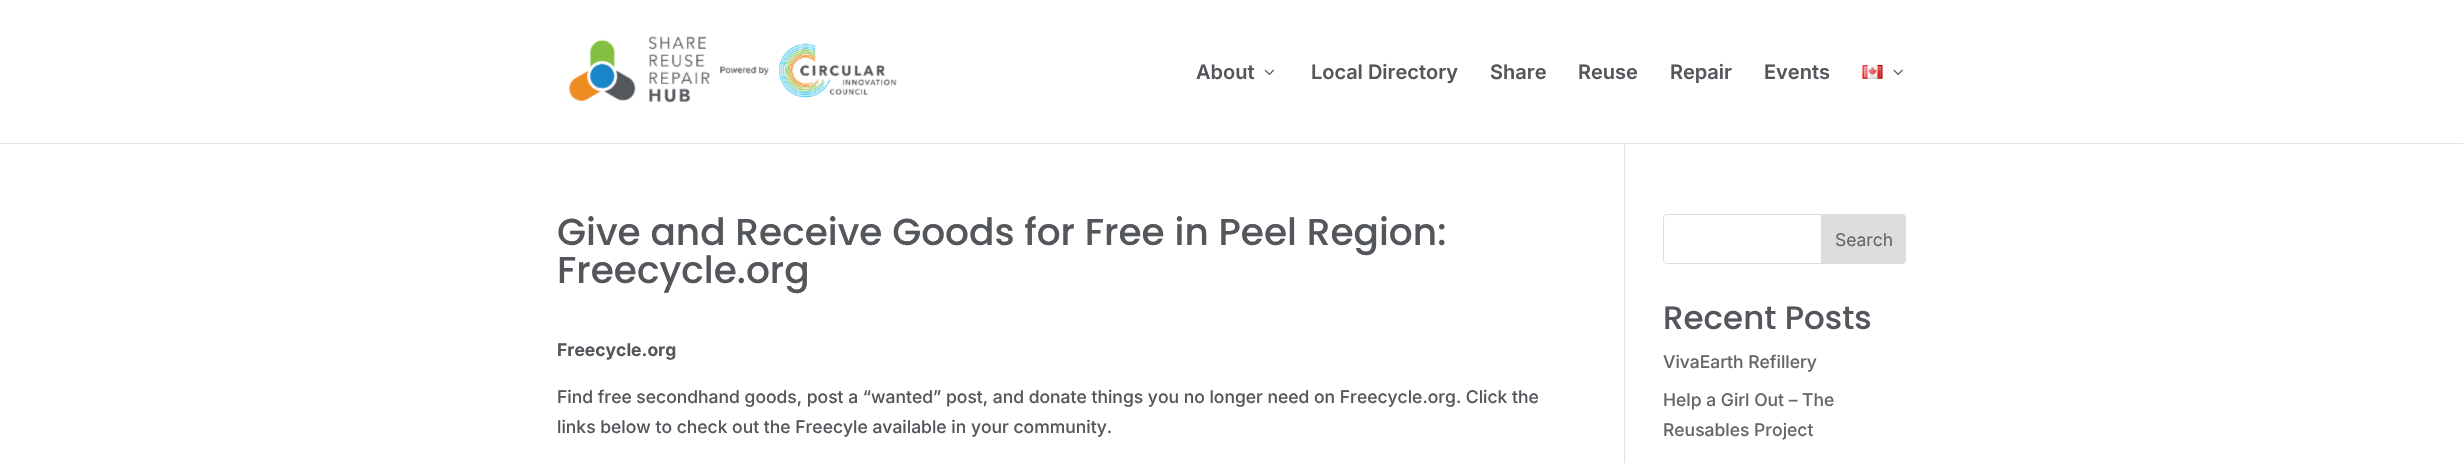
void draw(SkCanvas* canvas) {
	SkPaint paint;
	paint.setAntiAlias(true);
	auto svgPath = [&](const char* data, bool evenOdd = false) {
		SkPath result = *SkParsePath::FromSVGString(data);
		if (evenOdd) result.setFillType(SkPathFillType::kEvenOdd);
		return result;
	};
	canvas->clear(0xffffffff);
	paint.setColor(0xffe2e2e2);
	canvas->drawRect(SkRect::MakeXYWH(1624, 141, 1, 322), paint);
	paint.setColor(0x1a000000);
	canvas->drawPath(svgPath("M0 142V144H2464V1V142Z"), paint);
	paint.setColor(0xffffffff);
	canvas->drawRect(SkRect::MakeXYWH(0, 141, 2463, 2), paint);
	canvas->drawImageRect(SkImages::DeferredFromEncodedData(SkData::MakeFromFileName("img1.png")), SkRect::MakeXYWH(569, 36, 328, 67), SkSamplingOptions());
	SkFont f1(fontMgr->matchFamilyStyle("Inter", SkFontStyle(600, SkFontStyle::kNormal_Width, SkFontStyle::kUpright_Slant)), 20);
	f1.setSubpixel(true);
	paint.setColor(0xff53565a);
	canvas->drawString("About", 1196, 79, f1, paint);
	canvas->drawImageRect(SkImages::DeferredFromEncodedData(SkData::MakeFromFileName("img2.png")), SkRect::MakeXYWH(1264, 69, 10, 6), SkSamplingOptions());
	canvas->drawString("Local Directory", 1311, 79, f1, paint);
	canvas->drawString("Share", 1490, 79, f1, paint);
	canvas->drawString("Reuse", 1578, 79, f1, paint);
	canvas->drawString("Repair", 1670, 79, f1, paint);
	canvas->drawString("Events", 1764, 79, f1, paint);
	canvas->drawImageRect(SkImages::DeferredFromEncodedData(SkData::MakeFromFileName("img3.png")), SkRect::MakeXYWH(1862, 65, 21, 14), SkSamplingOptions());
	canvas->drawImageRect(SkImages::DeferredFromEncodedData(SkData::MakeFromFileName("img4.png")), SkRect::MakeXYWH(1893, 69, 10, 6), SkSamplingOptions());
	SkFont f2(fontMgr->matchFamilyStyle("Poppins", SkFontStyle(500, SkFontStyle::kNormal_Width, SkFontStyle::kUpright_Slant)), 37.5);
	f2.setSubpixel(true);
	canvas->drawString("Give and Receive Goods for Free in Peel Region:", 557, 245, f2, paint);
	canvas->drawString("Freecycle.org", 557, 283, f2, paint);
	SkFont f3(fontMgr->matchFamilyStyle("Inter", SkFontStyle::Bold()), 17.5);
	f3.setSubpixel(true);
	canvas->drawString("Freecycle.org", 557, 356, f3, paint);
	SkFont f4(fontMgr->matchFamilyStyle("Inter", SkFontStyle(500, SkFontStyle::kNormal_Width, SkFontStyle::kUpright_Slant)), 17.5);
	f4.setSubpixel(true);
	canvas->drawString("Find free secondhand goods, post a “wanted” post, and donate things you no longer need on Freecycle.org. Click the", 557, 403, f4, paint);
	canvas->drawString("links below to check out the Freecyle available in your community.", 557, 433, f4, paint);
	paint.setStroke(true);
	paint.setStrokeWidth(1);
	paint.setColor(0xffdddddd);
	canvas->drawRoundRect(SkRect::MakeXYWH(1663.5, 214.5, 242, 49), 3.5, 3.5, paint);
	paint.setStroke(false);
	canvas->drawPath(svgPath("M1821.5 214.5H1902C1904 214.5 1905.5 216 1905.5 218V260C1905.5 262 1904 263.5 1902 263.5H1821.5Z"), paint);
	paint.setStroke(true);
	canvas->drawPath(svgPath("M1821.5 214.5H1902C1904 214.5 1905.5 216 1905.5 218V260C1905.5 262 1904 263.5 1902 263.5H1821.5Z"), paint);
	SkFont f5(fontMgr->matchFamilyStyle("Inter", SkFontStyle::Normal()), 17.5);
	f5.setSubpixel(true);
	paint.setStroke(false);
	paint.setColor(0xff666666);
	canvas->drawString("Search", 1835, 246, f5, paint);
	SkFont f6(fontMgr->matchFamilyStyle("Poppins", SkFontStyle(500, SkFontStyle::kNormal_Width, SkFontStyle::kUpright_Slant)), 32.5);
	f6.setSubpixel(true);
	paint.setColor(0xff53565a);
	canvas->drawString("Recent Posts", 1663, 329, f6, paint);
	paint.setColor(0xff666666);
	canvas->drawString("VivaEarth Refillery", 1663, 368, f4, paint);
	canvas->drawString("Help a Girl Out – The", 1663, 406, f4, paint);
	canvas->drawString("Reusables Project", 1663, 436, f4, paint);
}
